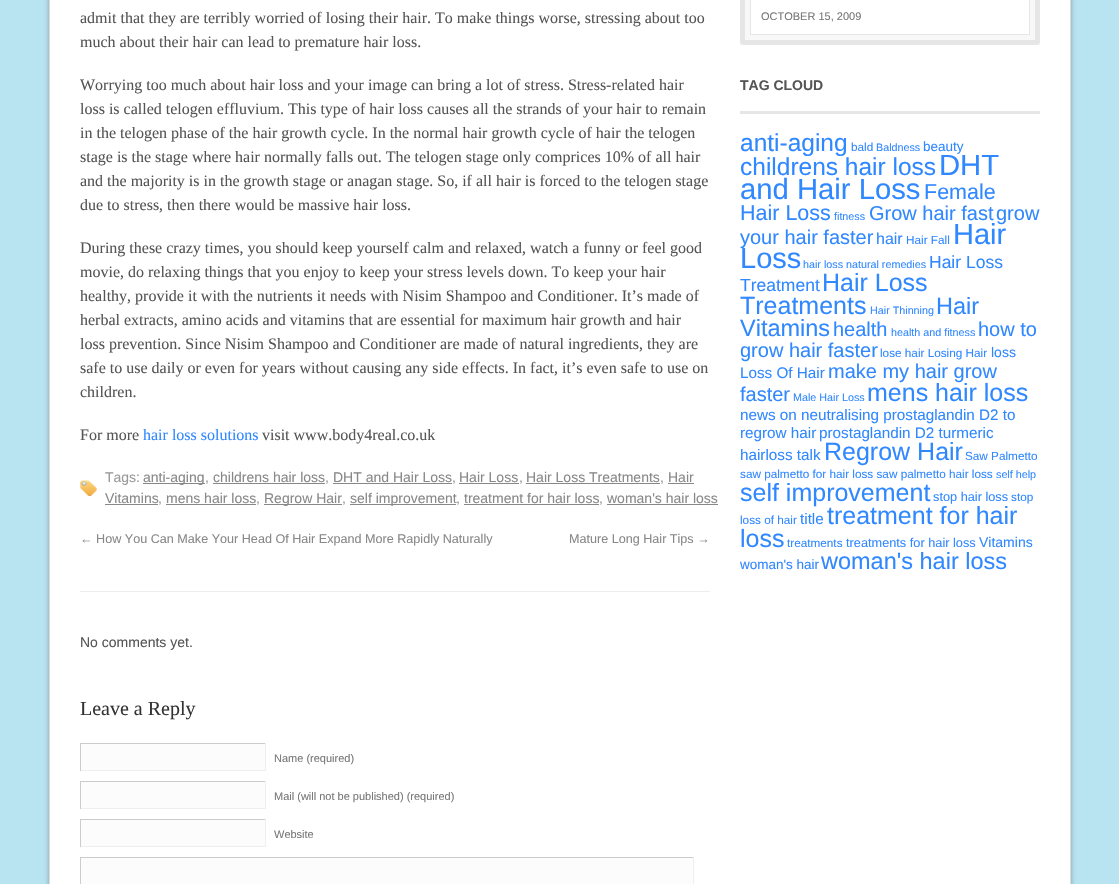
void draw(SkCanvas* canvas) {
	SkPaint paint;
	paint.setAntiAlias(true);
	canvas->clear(0xffb8e3f0);
	paint.setColor(0x4d000000);
	paint.setMaskFilter(SkMaskFilter::MakeBlur(kNormal_SkBlurStyle, 2.5));
	canvas->drawRoundRect(SkRect::MakeXYWH(49, -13, 1022, 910), 5, 5, paint);
	paint.setMaskFilter(nullptr);
	paint.setColor(0xffffffff);
	canvas->drawRect(SkRect::MakeXYWH(49.5, -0.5, 1021, 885), paint);
	paint.setStroke(true);
	paint.setStrokeWidth(1);
	paint.setColor(0xffdbdbdb);
	canvas->drawRect(SkRect::MakeXYWH(49.5, -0.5, 1021, 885), paint);
	SkFont f1(fontMgr->matchFamilyStyle("Liberation Serif", SkFontStyle::Normal()), 16);
	f1.setSubpixel(true);
	paint.setStroke(false);
	paint.setColor(0xff555555);
	canvas->drawString("admit that they are terribly worried of losing their hair. To make things worse, stressing about too", 80, 23, f1, paint);
	canvas->drawString("much about their hair can lead to premature hair loss.", 80, 47, f1, paint);
	canvas->drawString("Worrying too much about hair loss and your image can bring a lot of stress. Stress-related hair", 80, 90, f1, paint);
	canvas->drawString("loss is called telogen effluvium. This type of hair loss causes all the strands of your hair to remain", 80, 114, f1, paint);
	canvas->drawString("in the telogen phase of the hair growth cycle. In the normal hair growth cycle of hair the telogen", 80, 138, f1, paint);
	canvas->drawString("stage is the stage where hair normally falls out. The telogen stage only comprices 10% of all hair", 80, 162, f1, paint);
	canvas->drawString("and the majority is in the growth stage or anagan stage. So, if all hair is forced to the telogen stage", 80, 186, f1, paint);
	canvas->drawString("due to stress, then there would be massive hair loss.", 80, 210, f1, paint);
	canvas->drawString("During these crazy times, you should keep yourself calm and relaxed, watch a funny or feel good", 80, 253, f1, paint);
	canvas->drawString("movie, do relaxing things that you enjoy to keep your stress levels down. To keep your hair", 80, 277, f1, paint);
	canvas->drawString("healthy, provide it with the nutrients it needs with Nisim Shampoo and Conditioner. It’s made of", 80, 301, f1, paint);
	canvas->drawString("herbal extracts, amino acids and vitamins that are essential for maximum hair growth and hair", 80, 325, f1, paint);
	canvas->drawString("loss prevention. Since Nisim Shampoo and Conditioner are made of natural ingredients, they are", 80, 349, f1, paint);
	canvas->drawString("safe to use daily or even for years without causing any side effects. In fact, it’s even safe to use on", 80, 373, f1, paint);
	canvas->drawString("children.", 80, 397, f1, paint);
	canvas->drawString("For more", 80, 440, f1, paint);
	paint.setColor(0xff3088ff);
	canvas->drawString("hair loss solutions", 143, 440, f1, paint);
	paint.setColor(0xff555555);
	canvas->drawString("visit www.body4real.co.uk", 262, 440, f1, paint);
	canvas->drawImageRect(SkImages::DeferredFromEncodedData(SkData::MakeFromFileName("img1.png")), SkRect::MakeXYWH(80, 480, 17, 16), SkSamplingOptions());
	SkFont f2(fontMgr->matchFamilyStyle("Liberation Sans", SkFontStyle::Normal()), 14);
	f2.setSubpixel(true);
	paint.setColor(0xff999999);
	canvas->drawString("Tags:", 105, 482, f2, paint);
	paint.setColor(0xff888888);
	canvas->drawRect(SkRect::MakeXYWH(143, 483, 62, 1), paint);
	canvas->drawString("anti-aging", 143, 482, f2, paint);
	paint.setColor(0xff999999);
	canvas->drawString(",", 205, 482, f2, paint);
	paint.setColor(0xff888888);
	canvas->drawString("childrens hair loss", 213, 482, f2, paint);
	canvas->drawRect(SkRect::MakeXYWH(213, 483, 112, 1), paint);
	paint.setColor(0xff999999);
	canvas->drawString(",", 325, 482, f2, paint);
	paint.setColor(0xff888888);
	canvas->drawString("DHT and Hair Loss", 333, 482, f2, paint);
	canvas->drawRect(SkRect::MakeXYWH(333, 483, 119, 1), paint);
	paint.setColor(0xff999999);
	canvas->drawString(",", 452, 482, f2, paint);
	paint.setColor(0xff888888);
	canvas->drawString("Hair Loss", 459, 482, f2, paint);
	canvas->drawRect(SkRect::MakeXYWH(459, 483, 60, 1), paint);
	paint.setColor(0xff999999);
	canvas->drawString(",", 519, 482, f2, paint);
	paint.setColor(0xff888888);
	canvas->drawString("Hair Loss Treatments", 526, 482, f2, paint);
	canvas->drawRect(SkRect::MakeXYWH(526, 483, 134, 1), paint);
	paint.setColor(0xff999999);
	canvas->drawString(",", 660, 482, f2, paint);
	paint.setColor(0xff888888);
	canvas->drawString("Hair", 668, 482, f2, paint);
	canvas->drawRect(SkRect::MakeXYWH(668, 483, 26, 1), paint);
	canvas->drawString("Vitamins", 105, 503, f2, paint);
	canvas->drawRect(SkRect::MakeXYWH(105, 504, 53, 1), paint);
	paint.setColor(0xff999999);
	canvas->drawString(",", 158, 503, f2, paint);
	paint.setColor(0xff888888);
	canvas->drawString("mens hair loss", 166, 503, f2, paint);
	canvas->drawRect(SkRect::MakeXYWH(166, 504, 90, 1), paint);
	paint.setColor(0xff999999);
	canvas->drawString(",", 256, 503, f2, paint);
	paint.setColor(0xff888888);
	canvas->drawRect(SkRect::MakeXYWH(264, 504, 78, 1), paint);
	canvas->drawString("Regrow Hair", 264, 503, f2, paint);
	paint.setColor(0xff999999);
	canvas->drawString(",", 342, 503, f2, paint);
	paint.setColor(0xff888888);
	canvas->drawRect(SkRect::MakeXYWH(350, 504, 106, 1), paint);
	canvas->drawString("self improvement", 350, 503, f2, paint);
	paint.setColor(0xff999999);
	canvas->drawString(",", 456, 503, f2, paint);
	paint.setColor(0xff888888);
	canvas->drawString("treatment for hair loss", 464, 503, f2, paint);
	canvas->drawRect(SkRect::MakeXYWH(464, 504, 135, 1), paint);
	paint.setColor(0xff999999);
	canvas->drawString(",", 599, 503, f2, paint);
	paint.setColor(0xff888888);
	canvas->drawString("woman's hair loss", 607, 503, f2, paint);
	canvas->drawRect(SkRect::MakeXYWH(607, 504, 111, 1), paint);
	SkFont f3(fontMgr->matchFamilyStyle("Liberation Sans", SkFontStyle::Normal()), 12.6);
	f3.setSubpixel(true);
	canvas->drawString("← How You Can Make Your Head Of Hair Expand More Rapidly Naturally", 80, 543, f3, paint);
	canvas->drawString("Mature Long Hair Tips →", 569, 543, f3, paint);
	paint.setColor(0xffededed);
	canvas->drawRect(SkRect::MakeXYWH(80, 591, 630, 1), paint);
	paint.setColor(0xff555555);
	canvas->drawString("No comments yet.", 80, 647, f2, paint);
	SkFont f4(fontMgr->matchFamilyStyle("Liberation Serif", SkFontStyle::Normal()), 20);
	f4.setSubpixel(true);
	paint.setColor(0xff333333);
	canvas->drawString("Leave a Reply", 80, 715, f4, paint);
	paint.setColor(0xfffcfcfc);
	canvas->drawRect(SkRect::MakeXYWH(81, 744, 184, 26), paint);
	paint.setColor(0xffcccccc);
	canvas->drawRect(SkRect::MakeXYWH(80, 743, 186, 1), paint);
	paint.setColor(0xffefefef);
	canvas->drawRect(SkRect::MakeXYWH(265, 743, 1, 28), paint);
	canvas->drawRect(SkRect::MakeXYWH(80, 770, 186, 1), paint);
	paint.setColor(0xffcccccc);
	canvas->drawRect(SkRect::MakeXYWH(80, 743, 1, 28), paint);
	SkFont f5(fontMgr->matchFamilyStyle("Liberation Sans", SkFontStyle::Normal()), 11);
	f5.setSubpixel(true);
	paint.setColor(0xff777777);
	canvas->drawString("Name (required)", 274, 762, f5, paint);
	paint.setColor(0xfffcfcfc);
	canvas->drawRect(SkRect::MakeXYWH(81, 782, 184, 26), paint);
	paint.setColor(0xffcccccc);
	canvas->drawRect(SkRect::MakeXYWH(80, 781, 186, 1), paint);
	paint.setColor(0xffefefef);
	canvas->drawRect(SkRect::MakeXYWH(265, 781, 1, 28), paint);
	canvas->drawRect(SkRect::MakeXYWH(80, 808, 186, 1), paint);
	paint.setColor(0xffcccccc);
	canvas->drawRect(SkRect::MakeXYWH(80, 781, 1, 28), paint);
	paint.setColor(0xff777777);
	canvas->drawString("Mail (will not be published) (required)", 274, 800, f5, paint);
	paint.setColor(0xfffcfcfc);
	canvas->drawRect(SkRect::MakeXYWH(81, 820, 184, 26), paint);
	paint.setColor(0xffcccccc);
	canvas->drawRect(SkRect::MakeXYWH(80, 819, 186, 1), paint);
	paint.setColor(0xffefefef);
	canvas->drawRect(SkRect::MakeXYWH(265, 819, 1, 28), paint);
	canvas->drawRect(SkRect::MakeXYWH(80, 846, 186, 1), paint);
	paint.setColor(0xffcccccc);
	canvas->drawRect(SkRect::MakeXYWH(80, 819, 1, 28), paint);
	paint.setColor(0xff777777);
	canvas->drawString("Website", 274, 838, f5, paint);
	paint.setColor(0xfffcfcfc);
	canvas->drawRect(SkRect::MakeXYWH(81, 858, 612, 26), paint);
	paint.setColor(0xffcccccc);
	canvas->drawRect(SkRect::MakeXYWH(80, 857, 614, 1), paint);
	paint.setColor(0xffefefef);
	canvas->drawRect(SkRect::MakeXYWH(693, 857, 1, 27), paint);
	paint.setColor(0xffcccccc);
	canvas->drawRect(SkRect::MakeXYWH(80, 857, 1, 27), paint);
	paint.setColor(0xffe6e6e6);
	canvas->drawRoundRect(SkRect::MakeXYWH(740, -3, 300, 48), 3, 3, paint);
	paint.setColor(0xfff8f8f8);
	canvas->drawRect(SkRect::MakeXYWH(745, 0, 290, 40), paint);
	paint.setColor(0xffe6e6e6);
	canvas->drawRect(SkRect::MakeXYWH(750, 34, 280, 1), paint);
	paint.setColor(0xffffffff);
	canvas->drawRect(SkRect::MakeXYWH(751, 0, 278, 34), paint);
	paint.setColor(0xffe6e6e6);
	canvas->drawRect(SkRect::MakeXYWH(1029, 0, 1, 34), paint);
	canvas->drawRect(SkRect::MakeXYWH(750, 0, 1, 34), paint);
	paint.setColor(0xff777777);
	canvas->drawString("OCTOBER 15, 2009", 761, 20, f5, paint);
	paint.setColor(0xffe6e6e6);
	canvas->drawRect(SkRect::MakeXYWH(740, 111, 300, 3), paint);
	SkFont f6(fontMgr->matchFamilyStyle("Liberation Sans", SkFontStyle::Bold()), 14);
	f6.setSubpixel(true);
	paint.setColor(0xff555555);
	canvas->drawString("TAG CLOUD", 740, 90, f6, paint);
	SkFont f7(fontMgr->matchFamilyStyle("Liberation Sans", SkFontStyle::Normal()), 24.5);
	f7.setSubpixel(true);
	paint.setColor(0xff3088ff);
	canvas->drawString("anti-aging", 740, 151, f7, paint);
	SkFont f8(fontMgr->matchFamilyStyle("Liberation Sans", SkFontStyle::Normal()), 11.75);
	f8.setSubpixel(true);
	canvas->drawString("bald", 851, 151, f8, paint);
	SkFont f9(fontMgr->matchFamilyStyle("Liberation Sans", SkFontStyle::Normal()), 10.75);
	f9.setSubpixel(true);
	canvas->drawString("Baldness", 876, 151, f9, paint);
	SkFont f10(fontMgr->matchFamilyStyle("Liberation Sans", SkFontStyle::Normal()), 13.5);
	f10.setSubpixel(true);
	canvas->drawString("beauty", 923, 151, f10, paint);
	canvas->drawString("childrens hair loss", 740, 175, f7, paint);
	SkFont f11(fontMgr->matchFamilyStyle("Liberation Sans", SkFontStyle::Normal()), 29.25);
	f11.setSubpixel(true);
	canvas->drawString("DHT", 939, 175, f11, paint);
	canvas->drawString("and Hair Loss", 740, 199, f11, paint);
	SkFont f12(fontMgr->matchFamilyStyle("Liberation Sans", SkFontStyle::Normal()), 21.5);
	f12.setSubpixel(true);
	canvas->drawString("Female", 924, 199, f12, paint);
	canvas->drawString("Hair Loss", 740, 220, f12, paint);
	canvas->drawString("fitness", 834, 220, f9, paint);
	SkFont f13(fontMgr->matchFamilyStyle("Liberation Sans", SkFontStyle::Normal()), 20);
	f13.setSubpixel(true);
	canvas->drawString("Grow hair fast", 869, 220, f13, paint);
	canvas->drawString("grow", 996, 220, f13, paint);
	canvas->drawString("your hair faster", 740, 244, f13, paint);
	SkFont f14(fontMgr->matchFamilyStyle("Liberation Sans", SkFontStyle::Normal()), 16);
	f14.setSubpixel(true);
	canvas->drawString("hair", 876, 244, f14, paint);
	canvas->drawString("Hair Fall", 906, 244, f8, paint);
	SkFont f15(fontMgr->matchFamilyStyle("Liberation Sans", SkFontStyle::Normal()), 29);
	f15.setSubpixel(true);
	canvas->drawString("Hair", 953, 244, f15, paint);
	canvas->drawString("Loss", 740, 268, f15, paint);
	canvas->drawString("hair loss natural remedies", 803, 268, f9, paint);
	SkFont f16(fontMgr->matchFamilyStyle("Liberation Sans", SkFontStyle::Normal()), 17.5);
	f16.setSubpixel(true);
	canvas->drawString("Hair Loss", 929, 268, f16, paint);
	canvas->drawString("Treatment", 740, 291, f16, paint);
	SkFont f17(fontMgr->matchFamilyStyle("Liberation Sans", SkFontStyle::Normal()), 25);
	f17.setSubpixel(true);
	canvas->drawString("Hair Loss", 822, 291, f17, paint);
	canvas->drawString("Treatments", 740, 314, f17, paint);
	canvas->drawString("Hair Thinning", 870, 314, f9, paint);
	SkFont f18(fontMgr->matchFamilyStyle("Liberation Sans", SkFontStyle::Normal()), 23.5);
	f18.setSubpixel(true);
	canvas->drawString("Hair", 936, 314, f18, paint);
	canvas->drawString("Vitamins", 740, 336, f18, paint);
	canvas->drawString("health", 833, 336, f13, paint);
	canvas->drawString("health and fitness", 891, 336, f9, paint);
	canvas->drawString("how to", 978, 336, f13, paint);
	canvas->drawString("grow hair faster", 740, 357, f13, paint);
	canvas->drawString("lose hair Losing Hair", 880, 357, f8, paint);
	canvas->drawString("loss", 991, 357, f2, paint);
	SkFont f19(fontMgr->matchFamilyStyle("Liberation Sans", SkFontStyle::Normal()), 15.25);
	f19.setSubpixel(true);
	canvas->drawString("Loss Of Hair", 740, 378, f19, paint);
	canvas->drawString("make my hair grow", 828, 378, f13, paint);
	canvas->drawString("faster", 740, 401, f13, paint);
	canvas->drawString("Male Hair Loss", 793, 401, f9, paint);
	canvas->drawString("mens hair loss", 867, 401, f17, paint);
	canvas->drawString("news on neutralising prostaglandin D2 to", 740, 420, f19, paint);
	canvas->drawString("regrow hair", 740, 438, f19, paint);
	canvas->drawString("prostaglandin D2 turmeric", 819, 438, f19, paint);
	canvas->drawString("hairloss talk", 740, 460, f19, paint);
	canvas->drawString("Regrow Hair", 824, 460, f17, paint);
	canvas->drawString("Saw Palmetto", 965, 460, f8, paint);
	canvas->drawString("saw palmetto for hair loss saw palmetto hair loss", 740, 478, f8, paint);
	canvas->drawString("self help", 996, 478, f9, paint);
	canvas->drawString("self improvement", 740, 501, f17, paint);
	SkFont f20(fontMgr->matchFamilyStyle("Liberation Sans", SkFontStyle::Normal()), 12.75);
	f20.setSubpixel(true);
	canvas->drawString("stop hair loss", 933, 501, f20, paint);
	canvas->drawString("stop", 1011, 501, f8, paint);
	canvas->drawString("loss of hair", 740, 524, f8, paint);
	canvas->drawString("title", 800, 524, f19, paint);
	canvas->drawString("treatment for hair", 827, 524, f17, paint);
	canvas->drawString("loss", 740, 547, f17, paint);
	canvas->drawString("treatments", 787, 547, f8, paint);
	canvas->drawString("treatments for hair loss", 846, 547, f20, paint);
	canvas->drawString("Vitamins", 979, 547, f2, paint);
	canvas->drawString("woman's hair", 740, 569, f10, paint);
	canvas->drawString("woman's hair loss", 821, 569, f18, paint);
}
